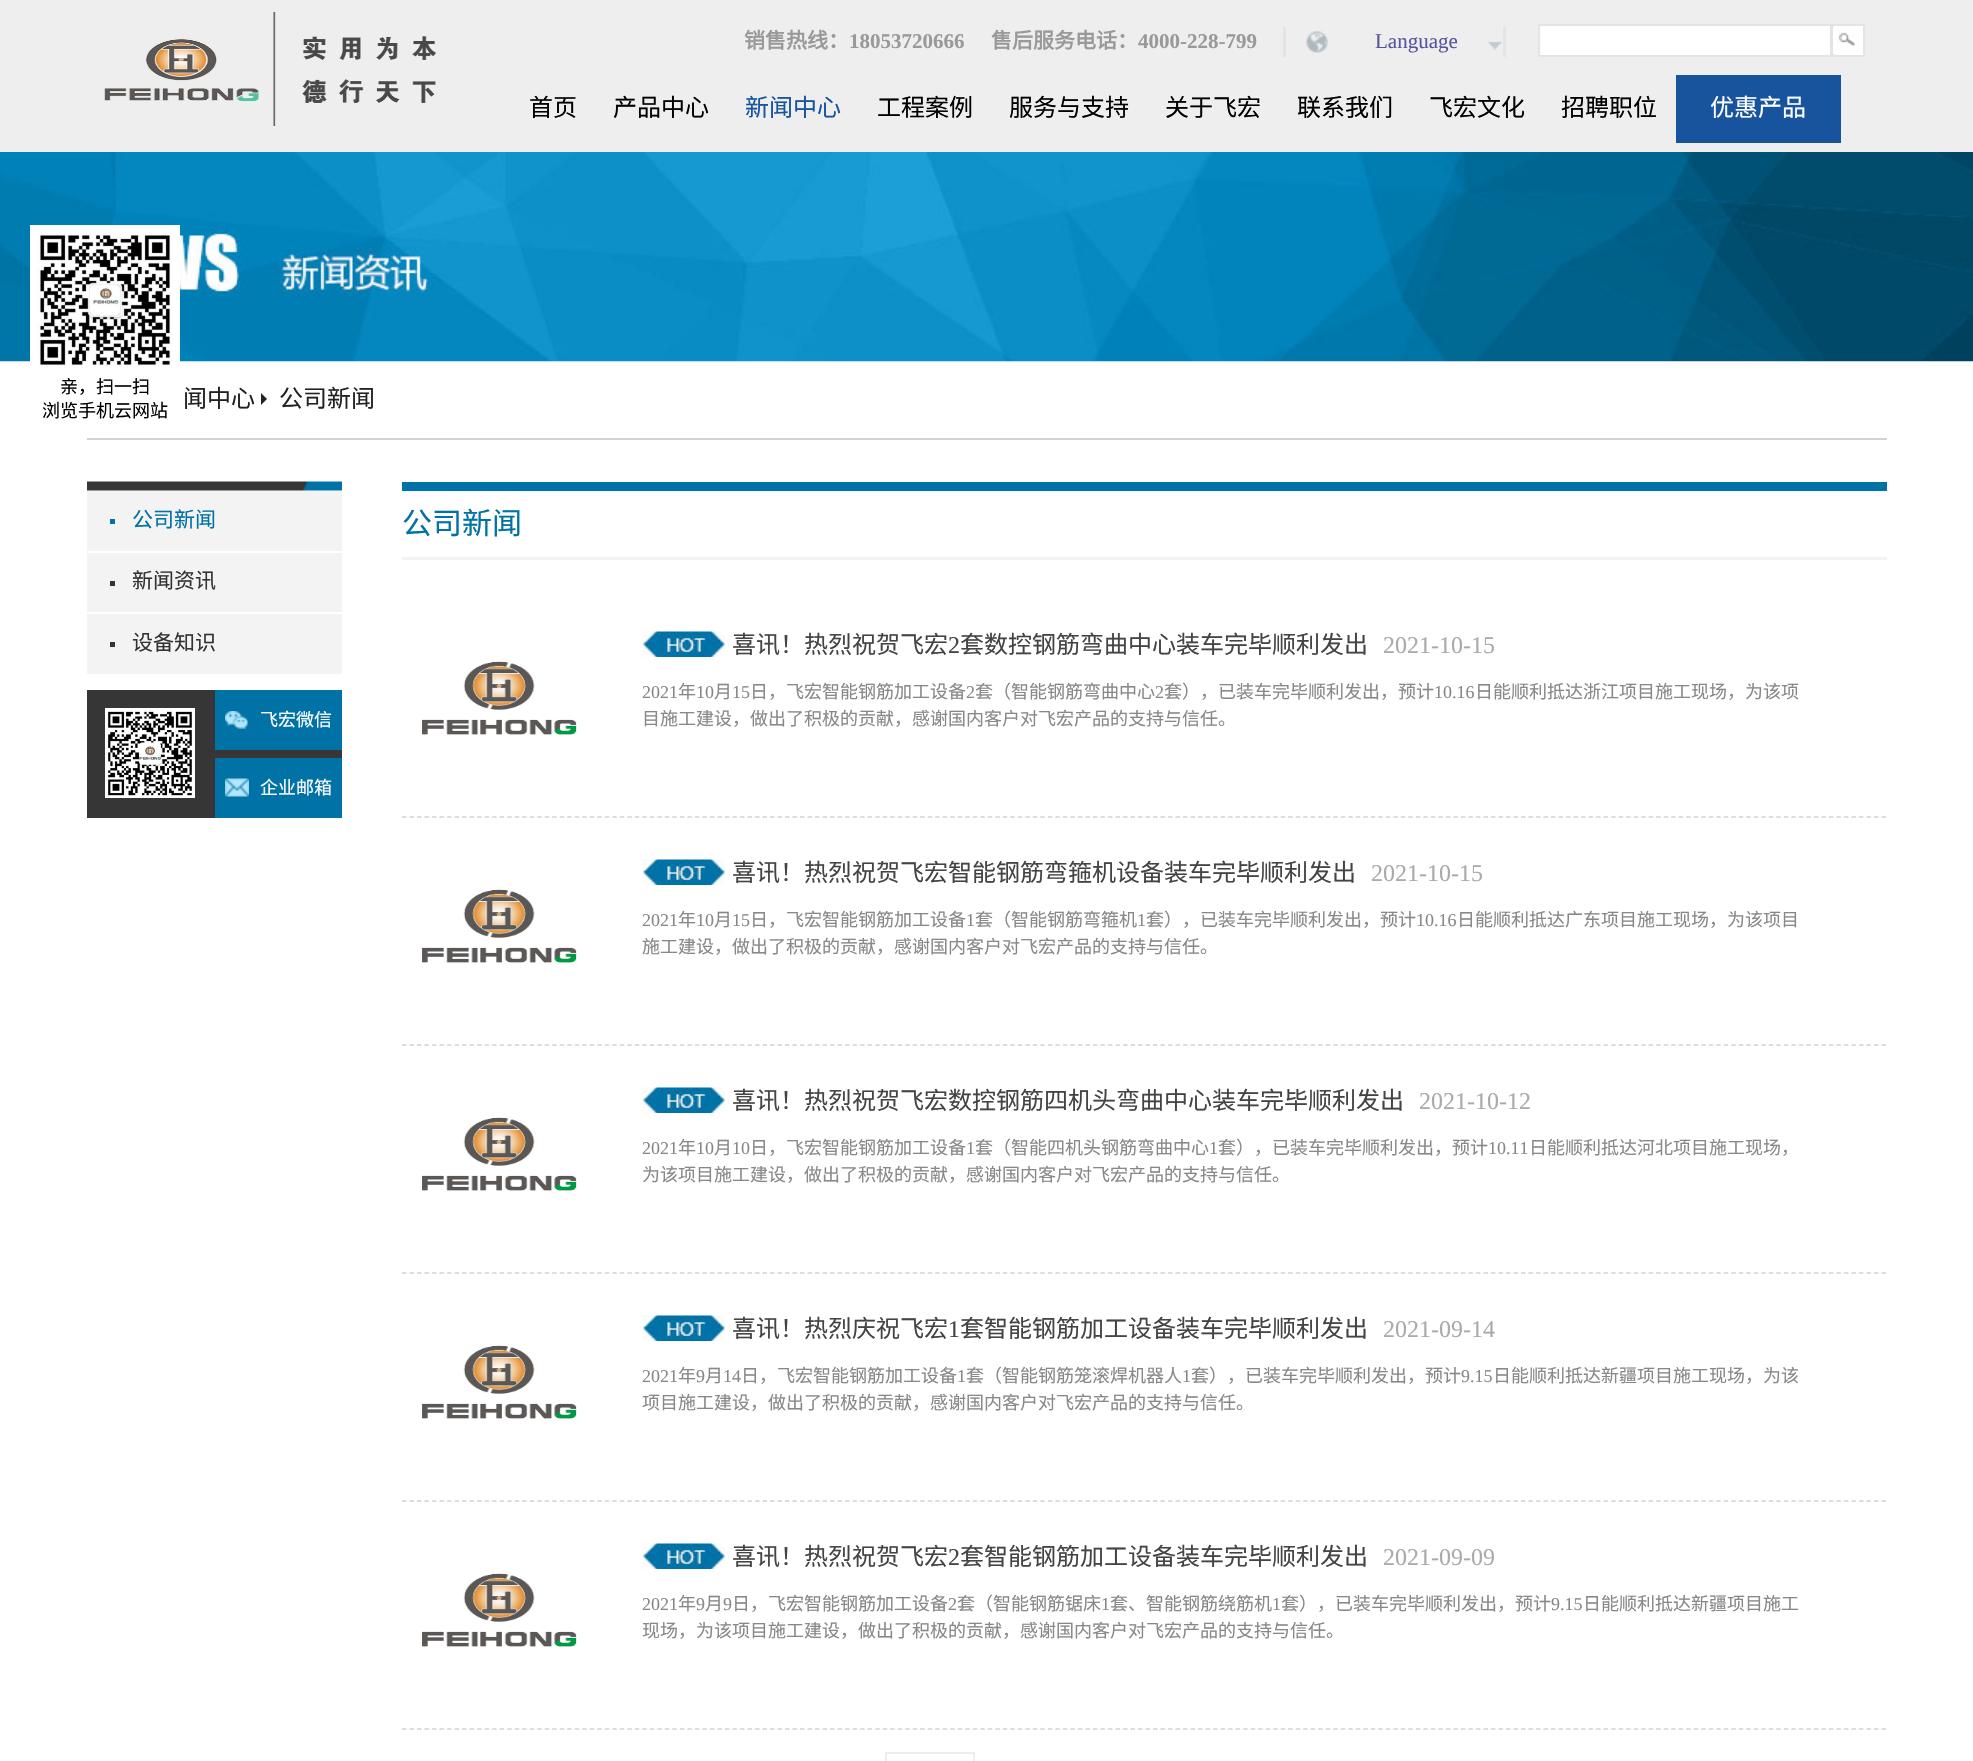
void draw(SkCanvas* canvas) {
	SkPaint paint;
	paint.setAntiAlias(true);
	auto svgPath = [&](const char* data, bool evenOdd = false) {
		SkPath result = *SkParsePath::FromSVGString(data);
		if (evenOdd) result.setFillType(SkPathFillType::kEvenOdd);
		return result;
	};
	canvas->clear(0xffffffff);
	paint.setColor(0xffeeeeee);
	canvas->drawRect(SkRect::MakeXYWH(0, 0, 1973, 152), paint);
	canvas->drawImageRect(SkImages::DeferredFromEncodedData(SkData::MakeFromFileName("img1.png")), SkRect::MakeXYWH(104, 12, 332, 114), SkSamplingOptions());
	SkFont f1(fontMgr->matchFamilyStyle("Noto Sans CJK SC", SkFontStyle::Bold()), 21);
	f1.setSubpixel(true);
	paint.setColor(0xff999999);
	canvas->drawString("销售热线：", 744, 48, f1, paint);
	SkFont f2(fontMgr->matchFamilyStyle("Liberation Serif", SkFontStyle::Bold()), 21);
	f2.setSubpixel(true);
	canvas->drawString("18053720666", 849, 48, f2, paint);
	canvas->drawString("售后服务电话：", 991, 48, f1, paint);
	canvas->drawString("4000-228-799", 1138, 48, f2, paint);
	canvas->drawImageRect(SkImages::DeferredFromEncodedData(SkData::MakeFromFileName("img2.png")), SkRect::MakeXYWH(1306, 31, 22, 22), SkSamplingOptions());
	paint.setColor(0xffe4e4e4);
	canvas->drawRect(SkRect::MakeXYWH(1503, 27, 3, 30), paint);
	canvas->drawRect(SkRect::MakeXYWH(1283, 27, 3, 30), paint);
	SkFont f3(fontMgr->matchFamilyStyle("Liberation Serif", SkFontStyle::Normal()), 21);
	f3.setSubpixel(true);
	paint.setColor(0xff55559a);
	canvas->drawString("Language", 1375, 48, f3, paint);
	canvas->drawImageRect(SkImages::DeferredFromEncodedData(SkData::MakeFromFileName("img3.png")), SkRect::MakeXYWH(1488, 41, 14, 9), SkSamplingOptions());
	paint.setColor(0xffffffff);
	canvas->drawRect(SkRect::MakeXYWH(1539, 25, 292, 31), paint);
	paint.setStroke(true);
	paint.setStrokeWidth(2);
	paint.setColor(0xffe4e4e4);
	canvas->drawRect(SkRect::MakeXYWH(1539, 25, 292, 31), paint);
	paint.setStroke(false);
	paint.setColor(0xffffffff);
	canvas->drawRect(SkRect::MakeXYWH(1833, 25, 31, 31), paint);
	paint.setStroke(true);
	paint.setColor(0xffe4e4e4);
	canvas->drawRect(SkRect::MakeXYWH(1833, 25, 31, 31), paint);
	canvas->drawImageRect(SkImages::DeferredFromEncodedData(SkData::MakeFromFileName("img4.png")), SkRect::MakeXYWH(1833, 27, 23, 27), SkSamplingOptions());
	SkFont f4(fontMgr->matchFamilyStyle("Noto Sans CJK SC", SkFontStyle::Normal()), 24);
	f4.setSubpixel(true);
	paint.setStroke(false);
	paint.setColor(0xff000000);
	canvas->drawString("首页", 529, 116, f4, paint);
	canvas->drawString("产品中心", 613, 116, f4, paint);
	paint.setColor(0xff18539e);
	canvas->drawString("新闻中心", 745, 116, f4, paint);
	paint.setColor(0xff000000);
	canvas->drawString("工程案例", 877, 116, f4, paint);
	canvas->drawString("服务与支持", 1009, 116, f4, paint);
	canvas->drawString("关于飞宏", 1165, 116, f4, paint);
	canvas->drawString("联系我们", 1297, 116, f4, paint);
	canvas->drawString("飞宏文化", 1429, 116, f4, paint);
	canvas->drawString("招聘职位", 1561, 116, f4, paint);
	paint.setColor(0xff18539e);
	canvas->drawRect(SkRect::MakeXYWH(1676, 75, 165, 68), paint);
	paint.setColor(0xffffffff);
	canvas->drawString("优惠产品", 1710, 116, f4, paint);
	canvas->drawImageRect(SkImages::DeferredFromEncodedData(SkData::MakeFromFileName("img5.png")), SkRect::MakeXYWH(0, 152, 1973, 210), SkSamplingOptions());
	canvas->drawImageRect(SkImages::DeferredFromEncodedData(SkData::MakeFromFileName("img6.png")), SkRect::MakeXYWH(30, 225, 150, 141), SkSamplingOptions());
	SkFont f5(fontMgr->matchFamilyStyle("Noto Sans CJK SC", SkFontStyle::Normal()), 18);
	f5.setSubpixel(true);
	paint.setColor(0xff000000);
	canvas->drawString("亲，扫一扫", 60, 393, f5, paint);
	canvas->drawString("浏览手机云网站", 42, 417, f5, paint);
	paint.setColor(0xffd2d2d2);
	canvas->drawRect(SkRect::MakeXYWH(87, 438, 1800, 2), paint);
	paint.setColor(0xff222222);
	canvas->drawString("闻中心", 183, 407, f4, paint);
	canvas->drawPath(svgPath("M261 405V393L267 399Z"), paint);
	canvas->drawString("公司新闻", 279, 407, f4, paint);
	paint.setColor(0xff0072a6);
	canvas->drawRect(SkRect::MakeXYWH(402, 482, 1485, 9), paint);
	paint.setColor(0xfff3f3f3);
	canvas->drawRect(SkRect::MakeXYWH(402, 557, 1485, 3), paint);
	SkFont f6(fontMgr->matchFamilyStyle("Noto Sans CJK SC", SkFontStyle::Normal()), 30);
	f6.setSubpixel(true);
	paint.setColor(0xff0072a6);
	canvas->drawString("公司新闻", 402, 534, f6, paint);
	paint.setStroke(true);
	paint.setStrokeWidth(1.5);
	paint.setColor(0xffd4d4d4);
	paint.setPathEffect(SkDashPathEffect::Make({{4.5f, 3.01f}}, 0));
	canvas->drawPath(svgPath("M402 817H1887"), paint);
	paint.setPathEffect(nullptr);
	canvas->drawImageRect(SkImages::DeferredFromEncodedData(SkData::MakeFromFileName("img7.png")), SkRect::MakeXYWH(642, 631, 83, 26), SkSamplingOptions());
	paint.setStroke(false);
	paint.setColor(0xff444444);
	canvas->drawString("喜讯！热烈祝贺飞宏", 732, 653, f4, paint);
	SkFont f7(fontMgr->matchFamilyStyle("Liberation Serif", SkFontStyle::Normal()), 24);
	f7.setSubpixel(true);
	canvas->drawString("2", 948, 653, f7, paint);
	canvas->drawString("套数控钢筋弯曲中心装车完毕顺利发出", 960, 653, f4, paint);
	paint.setColor(0xffaaaaaa);
	canvas->drawString("2021-10-15", 1383, 653, f7, paint);
	canvas->drawImageRect(SkImages::DeferredFromEncodedData(SkData::MakeFromFileName("img8.png")), SkRect::MakeXYWH(422, 661, 155, 74), SkSamplingOptions());
	SkFont f8(fontMgr->matchFamilyStyle("Liberation Serif", SkFontStyle::Normal()), 18);
	f8.setSubpixel(true);
	paint.setColor(0xff888888);
	canvas->drawString("2021", 642, 698, f8, paint);
	canvas->drawString("年", 678, 698, f5, paint);
	canvas->drawString("10", 696, 698, f8, paint);
	canvas->drawString("月", 714, 698, f5, paint);
	canvas->drawString("15", 732, 698, f8, paint);
	canvas->drawString("日，飞宏智能钢筋加工设备", 750, 698, f5, paint);
	canvas->drawString("2", 966, 698, f8, paint);
	canvas->drawString("套（智能钢筋弯曲中心", 975, 698, f5, paint);
	canvas->drawString("2", 1155, 698, f8, paint);
	canvas->drawString("套），已装车完毕顺利发出，预计", 1164, 698, f5, paint);
	canvas->drawString("10.16", 1434, 698, f8, paint);
	canvas->drawString("日能顺利抵达浙江项目施工现场，为该项", 1475, 698, f5, paint);
	canvas->drawString("目施工建设，做出了积极的贡献，感谢国内客户对飞宏产品的支持与信任。", 642, 725, f5, paint);
	paint.setStroke(true);
	paint.setColor(0xffd4d4d4);
	paint.setPathEffect(SkDashPathEffect::Make({{4.5f, 3.01f}}, 0));
	canvas->drawPath(svgPath("M402 1045H1887"), paint);
	paint.setPathEffect(nullptr);
	canvas->drawImageRect(SkImages::DeferredFromEncodedData(SkData::MakeFromFileName("img7.png")), SkRect::MakeXYWH(642, 859, 83, 26), SkSamplingOptions());
	paint.setStroke(false);
	paint.setColor(0xff444444);
	canvas->drawString("喜讯！热烈祝贺飞宏智能钢筋弯箍机设备装车完毕顺利发出", 732, 881, f4, paint);
	paint.setColor(0xffaaaaaa);
	canvas->drawString("2021-10-15", 1371, 881, f7, paint);
	canvas->drawImageRect(SkImages::DeferredFromEncodedData(SkData::MakeFromFileName("img8.png")), SkRect::MakeXYWH(422, 889, 155, 74), SkSamplingOptions());
	paint.setColor(0xff888888);
	canvas->drawString("2021", 642, 926, f8, paint);
	canvas->drawString("年", 678, 926, f5, paint);
	canvas->drawString("10", 696, 926, f8, paint);
	canvas->drawString("月", 714, 926, f5, paint);
	canvas->drawString("15", 732, 926, f8, paint);
	canvas->drawString("日，飞宏智能钢筋加工设备", 750, 926, f5, paint);
	canvas->drawString("1", 966, 926, f8, paint);
	canvas->drawString("套（智能钢筋弯箍机", 975, 926, f5, paint);
	canvas->drawString("1", 1137, 926, f8, paint);
	canvas->drawString("套），已装车完毕顺利发出，预计", 1146, 926, f5, paint);
	canvas->drawString("10.16", 1416, 926, f8, paint);
	canvas->drawString("日能顺利抵达广东项目施工现场，为该项目", 1457, 926, f5, paint);
	canvas->drawString("施工建设，做出了积极的贡献，感谢国内客户对飞宏产品的支持与信任。", 642, 953, f5, paint);
	paint.setStroke(true);
	paint.setColor(0xffd4d4d4);
	paint.setPathEffect(SkDashPathEffect::Make({{4.5f, 3.01f}}, 0));
	canvas->drawPath(svgPath("M402 1273H1887"), paint);
	paint.setPathEffect(nullptr);
	canvas->drawImageRect(SkImages::DeferredFromEncodedData(SkData::MakeFromFileName("img7.png")), SkRect::MakeXYWH(642, 1087, 83, 26), SkSamplingOptions());
	paint.setStroke(false);
	paint.setColor(0xff444444);
	canvas->drawString("喜讯！热烈祝贺飞宏数控钢筋四机头弯曲中心装车完毕顺利发出", 732, 1109, f4, paint);
	paint.setColor(0xffaaaaaa);
	canvas->drawString("2021-10-12", 1419, 1109, f7, paint);
	canvas->drawImageRect(SkImages::DeferredFromEncodedData(SkData::MakeFromFileName("img8.png")), SkRect::MakeXYWH(422, 1117, 155, 74), SkSamplingOptions());
	paint.setColor(0xff888888);
	canvas->drawString("2021", 642, 1154, f8, paint);
	canvas->drawString("年", 678, 1154, f5, paint);
	canvas->drawString("10", 696, 1154, f8, paint);
	canvas->drawString("月", 714, 1154, f5, paint);
	canvas->drawString("10", 732, 1154, f8, paint);
	canvas->drawString("日，飞宏智能钢筋加工设备", 750, 1154, f5, paint);
	canvas->drawString("1", 966, 1154, f8, paint);
	canvas->drawString("套（智能四机头钢筋弯曲中心", 975, 1154, f5, paint);
	canvas->drawString("1", 1209, 1154, f8, paint);
	canvas->drawString("套），已装车完毕顺利发出，预计", 1218, 1154, f5, paint);
	canvas->drawString("10.11", 1488, 1154, f8, paint);
	canvas->drawString("日能顺利抵达河北项目施工现场，", 1529, 1154, f5, paint);
	canvas->drawString("为该项目施工建设，做出了积极的贡献，感谢国内客户对飞宏产品的支持与信任。", 642, 1181, f5, paint);
	paint.setStroke(true);
	paint.setColor(0xffd4d4d4);
	paint.setPathEffect(SkDashPathEffect::Make({{4.5f, 3.01f}}, 0));
	canvas->drawPath(svgPath("M402 1501H1887"), paint);
	paint.setPathEffect(nullptr);
	canvas->drawImageRect(SkImages::DeferredFromEncodedData(SkData::MakeFromFileName("img7.png")), SkRect::MakeXYWH(642, 1315, 83, 26), SkSamplingOptions());
	paint.setStroke(false);
	paint.setColor(0xff444444);
	canvas->drawString("喜讯！热烈庆祝飞宏", 732, 1337, f4, paint);
	canvas->drawString("1", 948, 1337, f7, paint);
	canvas->drawString("套智能钢筋加工设备装车完毕顺利发出", 960, 1337, f4, paint);
	paint.setColor(0xffaaaaaa);
	canvas->drawString("2021-09-14", 1383, 1337, f7, paint);
	canvas->drawImageRect(SkImages::DeferredFromEncodedData(SkData::MakeFromFileName("img8.png")), SkRect::MakeXYWH(422, 1345, 155, 74), SkSamplingOptions());
	paint.setColor(0xff888888);
	canvas->drawString("2021", 642, 1382, f8, paint);
	canvas->drawString("年", 678, 1382, f5, paint);
	canvas->drawString("9", 696, 1382, f8, paint);
	canvas->drawString("月", 705, 1382, f5, paint);
	canvas->drawString("14", 723, 1382, f8, paint);
	canvas->drawString("日，飞宏智能钢筋加工设备", 741, 1382, f5, paint);
	canvas->drawString("1", 957, 1382, f8, paint);
	canvas->drawString("套（智能钢筋笼滚焊机器人", 966, 1382, f5, paint);
	canvas->drawString("1", 1182, 1382, f8, paint);
	canvas->drawString("套），已装车完毕顺利发出，预计", 1191, 1382, f5, paint);
	canvas->drawString("9.15", 1461, 1382, f8, paint);
	canvas->drawString("日能顺利抵达新疆项目施工现场，为该", 1493, 1382, f5, paint);
	canvas->drawString("项目施工建设，做出了积极的贡献，感谢国内客户对飞宏产品的支持与信任。", 642, 1409, f5, paint);
	paint.setStroke(true);
	paint.setColor(0xffd4d4d4);
	paint.setPathEffect(SkDashPathEffect::Make({{4.5f, 3.01f}}, 0));
	canvas->drawPath(svgPath("M402 1729H1887"), paint);
	paint.setPathEffect(nullptr);
	canvas->drawImageRect(SkImages::DeferredFromEncodedData(SkData::MakeFromFileName("img7.png")), SkRect::MakeXYWH(642, 1543, 83, 26), SkSamplingOptions());
	paint.setStroke(false);
	paint.setColor(0xff444444);
	canvas->drawString("喜讯！热烈祝贺飞宏", 732, 1565, f4, paint);
	canvas->drawString("2", 948, 1565, f7, paint);
	canvas->drawString("套智能钢筋加工设备装车完毕顺利发出", 960, 1565, f4, paint);
	paint.setColor(0xffaaaaaa);
	canvas->drawString("2021-09-09", 1383, 1565, f7, paint);
	canvas->drawImageRect(SkImages::DeferredFromEncodedData(SkData::MakeFromFileName("img8.png")), SkRect::MakeXYWH(422, 1573, 155, 74), SkSamplingOptions());
	paint.setColor(0xff888888);
	canvas->drawString("2021", 642, 1610, f8, paint);
	canvas->drawString("年", 678, 1610, f5, paint);
	canvas->drawString("9", 696, 1610, f8, paint);
	canvas->drawString("月", 705, 1610, f5, paint);
	canvas->drawString("9", 723, 1610, f8, paint);
	canvas->drawString("日，飞宏智能钢筋加工设备", 732, 1610, f5, paint);
	canvas->drawString("2", 948, 1610, f8, paint);
	canvas->drawString("套（智能钢筋锯床", 957, 1610, f5, paint);
	canvas->drawString("1", 1101, 1610, f8, paint);
	canvas->drawString("套、智能钢筋绕筋机", 1110, 1610, f5, paint);
	canvas->drawString("1", 1272, 1610, f8, paint);
	canvas->drawString("套），已装车完毕顺利发出，预计", 1281, 1610, f5, paint);
	canvas->drawString("9.15", 1551, 1610, f8, paint);
	canvas->drawString("日能顺利抵达新疆项目施工", 1583, 1610, f5, paint);
	canvas->drawString("现场，为该项目施工建设，做出了积极的贡献，感谢国内客户对飞宏产品的支持与信任。", 642, 1637, f5, paint);
	paint.setStroke(true);
	paint.setStrokeWidth(2);
	paint.setColor(0xffededed);
	canvas->drawRect(SkRect::MakeXYWH(886, 1753, 88, 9), paint);
	canvas->drawImageRect(SkImages::DeferredFromEncodedData(SkData::MakeFromFileName("img9.png")), SkRect::MakeXYWH(87, 481, 255, 10), SkSamplingOptions());
	paint.setStroke(false);
	paint.setColor(0xfff3f3f3);
	canvas->drawRect(SkRect::MakeXYWH(87, 491, 255, 60), paint);
	paint.setColor(0xff0072a6);
	canvas->drawRect(SkRect::MakeXYWH(110, 519, 5, 5), paint);
	SkFont f9(fontMgr->matchFamilyStyle("Noto Sans CJK SC", SkFontStyle::Normal()), 21);
	f9.setSubpixel(true);
	canvas->drawString("公司新闻", 132, 527, f9, paint);
	paint.setColor(0xfff3f3f3);
	canvas->drawRect(SkRect::MakeXYWH(87, 553, 255, 59), paint);
	paint.setColor(0xff333333);
	canvas->drawRect(SkRect::MakeXYWH(110, 581, 5, 5), paint);
	canvas->drawString("新闻资讯", 132, 588, f9, paint);
	paint.setColor(0xfff3f3f3);
	canvas->drawRect(SkRect::MakeXYWH(87, 614, 255, 60), paint);
	paint.setColor(0xff333333);
	canvas->drawRect(SkRect::MakeXYWH(110, 642, 5, 5), paint);
	canvas->drawString("设备知识", 132, 650, f9, paint);
	paint.setColor(0xff353635);
	canvas->drawRect(SkRect::MakeXYWH(87, 690, 255, 128), paint);
	canvas->drawImageRect(SkImages::DeferredFromEncodedData(SkData::MakeFromFileName("img10.png")), SkRect::MakeXYWH(105, 708, 90, 90), SkSamplingOptions());
	paint.setColor(0xff0072a6);
	canvas->drawRect(SkRect::MakeXYWH(215, 690, 127, 60), paint);
	canvas->drawImageRect(SkImages::DeferredFromEncodedData(SkData::MakeFromFileName("img11.png")), SkRect::MakeXYWH(225, 711, 23, 18), SkSamplingOptions());
	paint.setColor(0xffffffff);
	canvas->drawString("飞宏微信", 260, 726, f5, paint);
	paint.setColor(0xff0072a6);
	canvas->drawRect(SkRect::MakeXYWH(215, 758, 127, 60), paint);
	canvas->drawImageRect(SkImages::DeferredFromEncodedData(SkData::MakeFromFileName("img12.png")), SkRect::MakeXYWH(225, 778, 24, 19), SkSamplingOptions());
	paint.setColor(0xffffffff);
	canvas->drawString("企业邮箱", 260, 794, f5, paint);
}
